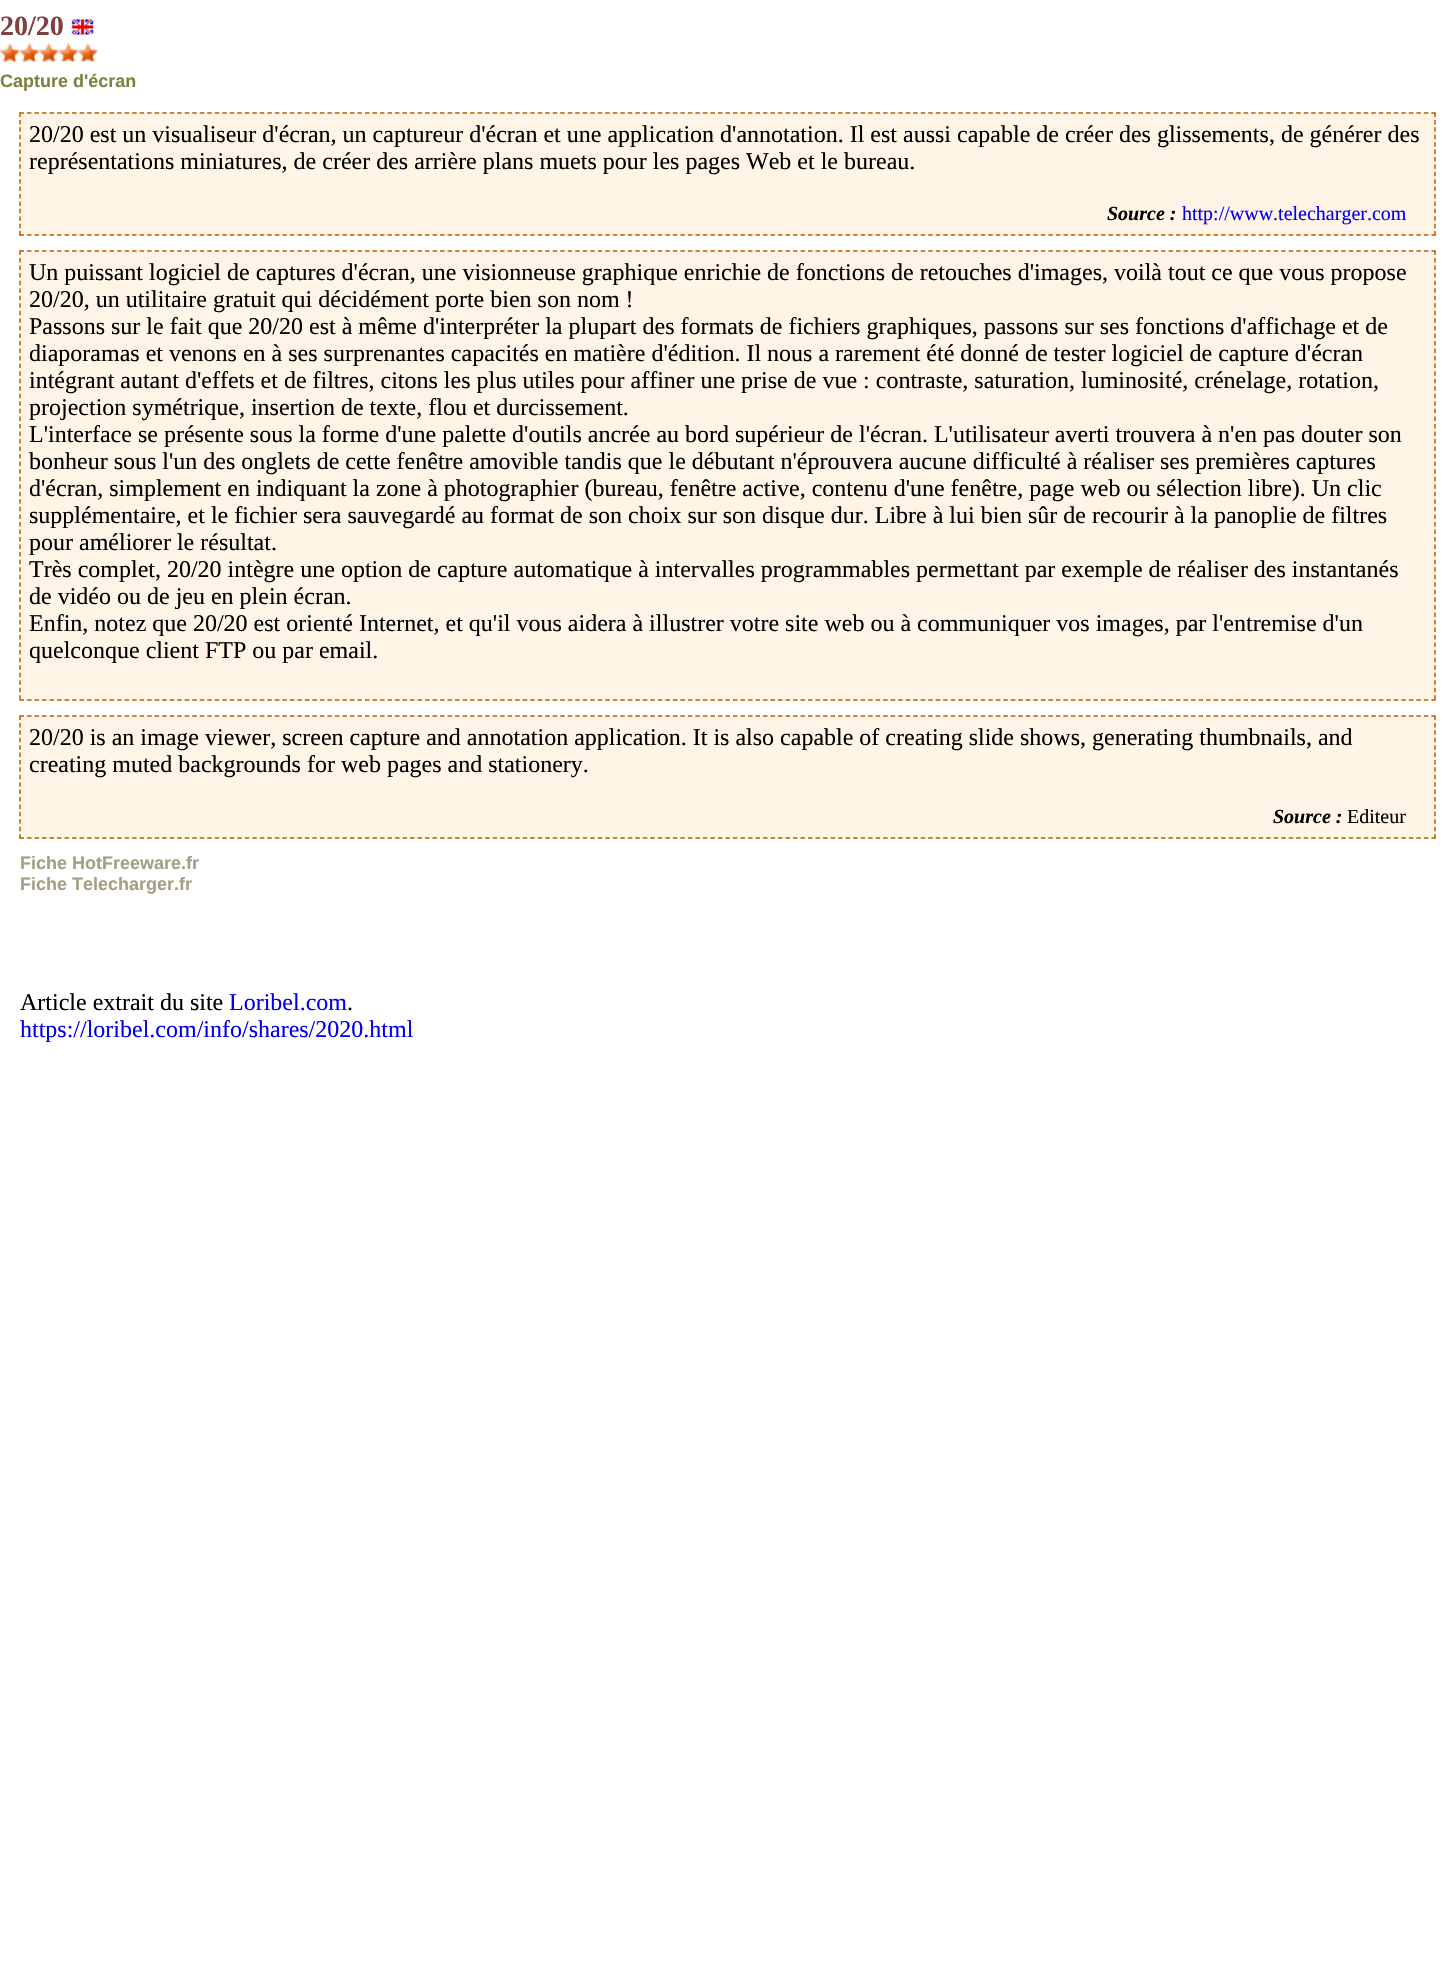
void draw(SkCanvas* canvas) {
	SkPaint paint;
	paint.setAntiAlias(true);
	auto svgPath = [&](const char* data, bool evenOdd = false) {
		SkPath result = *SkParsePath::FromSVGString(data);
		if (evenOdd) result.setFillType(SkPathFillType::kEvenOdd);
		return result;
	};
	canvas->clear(0xffffffff);
	SkFont f1(fontMgr->matchFamilyStyle("Liberation Serif", SkFontStyle::Bold()), 28);
	f1.setSubpixel(true);
	paint.setColor(0xff804040);
	canvas->drawString("20/20", 0, 35, f1, paint);
	canvas->drawImageRect(SkImages::DeferredFromEncodedData(SkData::MakeFromFileName("img1.png")), SkRect::MakeXYWH(71, 19, 23, 16), SkSamplingOptions());
	canvas->drawImageRect(SkImages::DeferredFromEncodedData(SkData::MakeFromFileName("img2.png")), SkRect::MakeXYWH(0, 43, 20, 19), SkSamplingOptions());
	canvas->drawImageRect(SkImages::DeferredFromEncodedData(SkData::MakeFromFileName("img3.png")), SkRect::MakeXYWH(19, 43, 20, 19), SkSamplingOptions());
	canvas->drawImageRect(SkImages::DeferredFromEncodedData(SkData::MakeFromFileName("img2.png")), SkRect::MakeXYWH(39, 43, 20, 19), SkSamplingOptions());
	canvas->drawImageRect(SkImages::DeferredFromEncodedData(SkData::MakeFromFileName("img3.png")), SkRect::MakeXYWH(58, 43, 20, 19), SkSamplingOptions());
	canvas->drawImageRect(SkImages::DeferredFromEncodedData(SkData::MakeFromFileName("img2.png")), SkRect::MakeXYWH(78, 43, 20, 19), SkSamplingOptions());
	SkFont f2(fontMgr->matchFamilyStyle("Liberation Sans", SkFontStyle::Bold()), 18);
	f2.setSubpixel(true);
	paint.setColor(0xff808040);
	canvas->drawString("Capture d'écran", 0, 87, f2, paint);
	paint.setColor(0xfffff4e6);
	canvas->drawRect(SkRect::MakeXYWH(20, 113, 1416, 123), paint);
	paint.setStroke(true);
	paint.setStrokeWidth(1.5);
	paint.setColor(0xffb36200);
	paint.setPathEffect(SkDashPathEffect::Make({{4.5f, 3.01f}}, 0));
	canvas->drawPath(svgPath("M19.5 113H1435.5"), paint);
	paint.setPathEffect(nullptr);
	paint.setPathEffect(SkDashPathEffect::Make({{4.5f, 2.91f}}, 0));
	canvas->drawPath(svgPath("M1435 112.5V235.5"), paint);
	paint.setPathEffect(nullptr);
	paint.setPathEffect(SkDashPathEffect::Make({{4.5f, 3.01f}}, 0));
	canvas->drawPath(svgPath("M19.5 235H1435.5"), paint);
	paint.setPathEffect(nullptr);
	paint.setPathEffect(SkDashPathEffect::Make({{4.5f, 2.91f}}, 0));
	canvas->drawPath(svgPath("M20 112.5V235.5"), paint);
	paint.setPathEffect(nullptr);
	SkFont f3(fontMgr->matchFamilyStyle("Liberation Serif", SkFontStyle::Normal()), 24);
	f3.setSubpixel(true);
	paint.setStroke(false);
	paint.setColor(0xff000000);
	canvas->drawString("20/20 est un visualiseur d'écran, un captureur d'écran et une application d'annotation. Il est aussi capable de créer des glissements, de générer des", 29, 142, f3, paint);
	canvas->drawString("représentations miniatures, de créer des arrière plans muets pour les pages Web et le bureau.", 29, 169, f3, paint);
	SkFont f4(fontMgr->matchFamilyStyle("Liberation Serif", SkFontStyle::BoldItalic()), 20);
	f4.setSubpixel(true);
	canvas->drawString("Source :", 1107, 220, f4, paint);
	SkFont f5(fontMgr->matchFamilyStyle("Liberation Serif", SkFontStyle::Normal()), 20);
	f5.setSubpixel(true);
	paint.setColor(0xff0000ee);
	canvas->drawString("http://www.telecharger.com", 1182, 220, f5, paint);
	paint.setColor(0xfffff4e6);
	canvas->drawRect(SkRect::MakeXYWH(20, 251, 1416, 450), paint);
	paint.setStroke(true);
	paint.setColor(0xffb36200);
	paint.setPathEffect(SkDashPathEffect::Make({{4.5f, 3.01f}}, 0));
	canvas->drawPath(svgPath("M19.5 251H1435.5"), paint);
	paint.setPathEffect(nullptr);
	paint.setPathEffect(SkDashPathEffect::Make({{4.5f, 3.04f}}, 0));
	canvas->drawPath(svgPath("M1435 250.5V700.5"), paint);
	paint.setPathEffect(nullptr);
	paint.setPathEffect(SkDashPathEffect::Make({{4.5f, 3.01f}}, 0));
	canvas->drawPath(svgPath("M19.5 700H1435.5"), paint);
	paint.setPathEffect(nullptr);
	paint.setPathEffect(SkDashPathEffect::Make({{4.5f, 3.04f}}, 0));
	canvas->drawPath(svgPath("M20 250.5V700.5"), paint);
	paint.setPathEffect(nullptr);
	paint.setStroke(false);
	paint.setColor(0xff000000);
	canvas->drawString("Un puissant logiciel de captures d'écran, une visionneuse graphique enrichie de fonctions de retouches d'images, voilà tout ce que vous propose", 29, 280, f3, paint);
	canvas->drawString("20/20, un utilitaire gratuit qui décidément porte bien son nom !", 29, 307, f3, paint);
	canvas->drawString("Passons sur le fait que 20/20 est à même d'interpréter la plupart des formats de fichiers graphiques, passons sur ses fonctions d'affichage et de", 29, 334, f3, paint);
	canvas->drawString("diaporamas et venons en à ses surprenantes capacités en matière d'édition. Il nous a rarement été donné de tester logiciel de capture d'écran", 29, 361, f3, paint);
	canvas->drawString("intégrant autant d'effets et de filtres, citons les plus utiles pour affiner une prise de vue : contraste, saturation, luminosité, crénelage, rotation,", 29, 388, f3, paint);
	canvas->drawString("projection symétrique, insertion de texte, flou et durcissement.", 29, 415, f3, paint);
	canvas->drawString("L'interface se présente sous la forme d'une palette d'outils ancrée au bord supérieur de l'écran. L'utilisateur averti trouvera à n'en pas douter son", 29, 442, f3, paint);
	canvas->drawString("bonheur sous l'un des onglets de cette fenêtre amovible tandis que le débutant n'éprouvera aucune difficulté à réaliser ses premières captures", 29, 469, f3, paint);
	canvas->drawString("d'écran, simplement en indiquant la zone à photographier (bureau, fenêtre active, contenu d'une fenêtre, page web ou sélection libre). Un clic", 29, 496, f3, paint);
	canvas->drawString("supplémentaire, et le fichier sera sauvegardé au format de son choix sur son disque dur. Libre à lui bien sûr de recourir à la panoplie de filtres", 29, 523, f3, paint);
	canvas->drawString("pour améliorer le résultat.", 29, 550, f3, paint);
	canvas->drawString("Très complet, 20/20 intègre une option de capture automatique à intervalles programmables permettant par exemple de réaliser des instantanés", 29, 577, f3, paint);
	canvas->drawString("de vidéo ou de jeu en plein écran.", 29, 604, f3, paint);
	canvas->drawString("Enfin, notez que 20/20 est orienté Internet, et qu'il vous aidera à illustrer votre site web ou à communiquer vos images, par l'entremise d'un", 29, 631, f3, paint);
	canvas->drawString("quelconque client FTP ou par email.", 29, 658, f3, paint);
	paint.setColor(0xfffff4e6);
	canvas->drawRect(SkRect::MakeXYWH(20, 716, 1416, 123), paint);
	paint.setStroke(true);
	paint.setColor(0xffb36200);
	paint.setPathEffect(SkDashPathEffect::Make({{4.5f, 3.01f}}, 0));
	canvas->drawPath(svgPath("M19.5 716H1435.5"), paint);
	paint.setPathEffect(nullptr);
	paint.setPathEffect(SkDashPathEffect::Make({{4.5f, 2.91f}}, 0));
	canvas->drawPath(svgPath("M1435 715.5V838.5"), paint);
	paint.setPathEffect(nullptr);
	paint.setPathEffect(SkDashPathEffect::Make({{4.5f, 3.01f}}, 0));
	canvas->drawPath(svgPath("M19.5 838H1435.5"), paint);
	paint.setPathEffect(nullptr);
	paint.setPathEffect(SkDashPathEffect::Make({{4.5f, 2.91f}}, 0));
	canvas->drawPath(svgPath("M20 715.5V838.5"), paint);
	paint.setPathEffect(nullptr);
	paint.setStroke(false);
	paint.setColor(0xff000000);
	canvas->drawString("20/20 is an image viewer, screen capture and annotation application. It is also capable of creating slide shows, generating thumbnails, and", 29, 745, f3, paint);
	canvas->drawString("creating muted backgrounds for web pages and stationery.", 29, 772, f3, paint);
	canvas->drawString("Source :", 1273, 823, f4, paint);
	canvas->drawString("Editeur", 1347, 823, f5, paint);
	paint.setColor(0xffa49f84);
	canvas->drawString("Fiche HotFreeware.fr", 20, 869, f2, paint);
	canvas->drawString("Fiche Telecharger.fr", 20, 890, f2, paint);
	paint.setColor(0xff000000);
	canvas->drawString("Article extrait du site", 20, 1010, f3, paint);
	paint.setColor(0xff0000ee);
	canvas->drawString("Loribel.com", 229, 1010, f3, paint);
	paint.setColor(0xff000000);
	canvas->drawString(".", 347, 1010, f3, paint);
	paint.setColor(0xff0000ee);
	canvas->drawString("https://loribel.com/info/shares/2020.html", 20, 1037, f3, paint);
}
